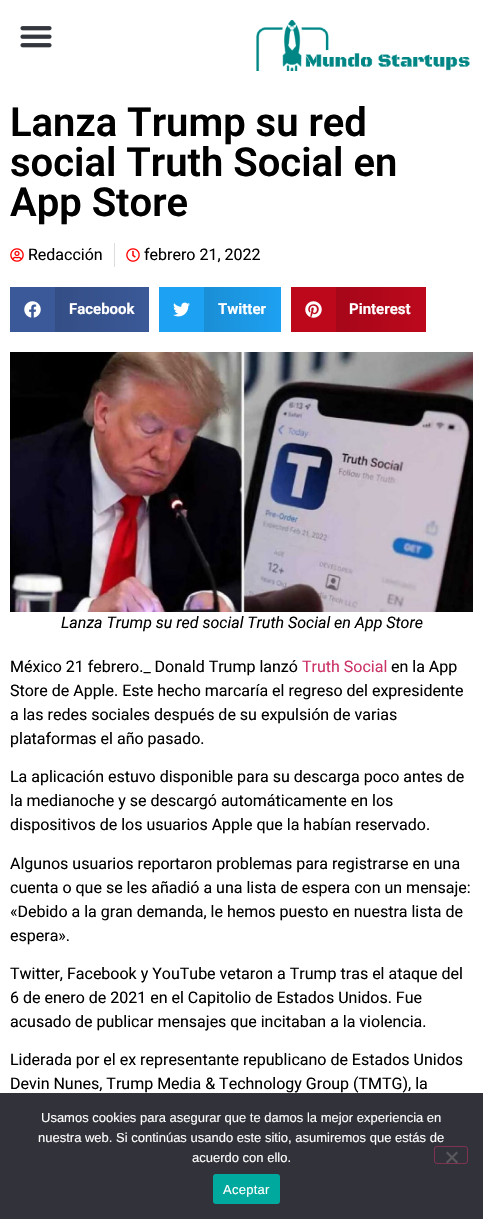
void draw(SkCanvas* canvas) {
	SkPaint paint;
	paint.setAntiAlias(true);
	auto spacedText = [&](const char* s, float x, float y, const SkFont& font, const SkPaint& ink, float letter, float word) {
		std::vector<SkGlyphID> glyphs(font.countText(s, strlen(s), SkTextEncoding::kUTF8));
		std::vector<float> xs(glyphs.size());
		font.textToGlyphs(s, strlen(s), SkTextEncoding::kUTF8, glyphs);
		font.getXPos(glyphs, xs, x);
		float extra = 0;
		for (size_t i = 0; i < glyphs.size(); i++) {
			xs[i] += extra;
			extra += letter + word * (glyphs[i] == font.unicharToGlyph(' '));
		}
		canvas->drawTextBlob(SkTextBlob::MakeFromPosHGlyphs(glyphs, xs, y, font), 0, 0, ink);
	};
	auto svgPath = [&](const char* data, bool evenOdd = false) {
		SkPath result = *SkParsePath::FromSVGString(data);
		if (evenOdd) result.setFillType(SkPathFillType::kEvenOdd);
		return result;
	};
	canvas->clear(0xffffffff);
	canvas->drawImageRect(SkImages::DeferredFromEncodedData(SkData::MakeFromFileName("img1.png")), SkRect::MakeXYWH(20, 26, 32, 22), SkSamplingOptions());
	canvas->drawImageRect(SkImages::DeferredFromEncodedData(SkData::MakeFromFileName("img2.png")), SkRect::MakeXYWH(256, 20, 214, 51), SkSamplingOptions());
	SkFont f1(fontMgr->matchFamilyStyle("Roboto", SkFontStyle(600, SkFontStyle::kNormal_Width, SkFontStyle::kUpright_Slant)), 40);
	f1.setSubpixel(true);
	paint.setColor(0xff000000);
	canvas->drawString("Lanza Trump su red", 10, 136, f1, paint);
	canvas->drawString("social Truth Social en", 10, 176, f1, paint);
	canvas->drawString("App Store", 10, 216, f1, paint);
	canvas->drawImageRect(SkImages::DeferredFromEncodedData(SkData::MakeFromFileName("img3.png")), SkRect::MakeXYWH(10, 248, 14, 14), SkSamplingOptions());
	SkFont f2(fontMgr->matchFamilyStyle("Roboto", SkFontStyle::Normal()), 16);
	f2.setSubpixel(true);
	canvas->drawString("Redacción", 28, 260, f2, paint);
	paint.setColor(0xffdddddd);
	canvas->drawRect(SkRect::MakeXYWH(114, 243, 1, 24), paint);
	canvas->drawImageRect(SkImages::DeferredFromEncodedData(SkData::MakeFromFileName("img4.png")), SkRect::MakeXYWH(126, 248, 14, 14), SkSamplingOptions());
	paint.setColor(0xff000000);
	canvas->drawString("febrero 21, 2022", 144, 260, f2, paint);
	paint.setColor(0xff3b5998);
	canvas->drawRect(SkRect::MakeXYWH(10, 287, 45, 45), paint);
	canvas->drawImageRect(SkImages::DeferredFromEncodedData(SkData::MakeFromFileName("img5.png")), SkRect::MakeXYWH(24, 301, 17, 17), SkSamplingOptions());
	{
		const SkColor colors[] = {0xff344e86, 0xff3b5998};
		const float stops[] = {0, 1};
		const SkPoint ends[] = {{55, 310}, {149, 310}};
		paint.setShader(SkGradientShader::MakeLinear(ends, colors, stops, 2, SkTileMode::kClamp));
		paint.setAlpha(255);
	}
	canvas->drawRect(SkRect::MakeXYWH(55, 287, 94, 45), paint);
	SkFont f3(fontMgr->matchFamilyStyle("Roboto", SkFontStyle::Bold()), 15);
	f3.setSubpixel(true);
	paint.setShader(nullptr);
	paint.setColor(0xffffffff);
	canvas->drawString("Facebook", 69, 314, f3, paint);
	paint.setColor(0xff1da1f2);
	canvas->drawRect(SkRect::MakeXYWH(159, 287, 45, 45), paint);
	canvas->drawImageRect(SkImages::DeferredFromEncodedData(SkData::MakeFromFileName("img6.png")), SkRect::MakeXYWH(173, 302, 17, 15), SkSamplingOptions());
	{
		const SkColor colors[] = {0xff1a8ed5, 0xff1da1f2};
		const float stops[] = {0, 1};
		const SkPoint ends[] = {{204, 310}, {281, 310}};
		paint.setShader(SkGradientShader::MakeLinear(ends, colors, stops, 2, SkTileMode::kClamp));
		paint.setAlpha(255);
	}
	canvas->drawRect(SkRect::MakeXYWH(204, 287, 77, 45), paint);
	paint.setShader(nullptr);
	paint.setColor(0xffffffff);
	canvas->drawString("Twitter", 218, 314, f3, paint);
	paint.setColor(0xffbd081c);
	canvas->drawRect(SkRect::MakeXYWH(291, 287, 45, 45), paint);
	canvas->drawImageRect(SkImages::DeferredFromEncodedData(SkData::MakeFromFileName("img7.png")), SkRect::MakeXYWH(305, 301, 17, 17), SkSamplingOptions());
	{
		const SkColor colors[] = {0xffa60719, 0xffbd081c};
		const float stops[] = {0, 1};
		const SkPoint ends[] = {{336, 310}, {426, 310}};
		paint.setShader(SkGradientShader::MakeLinear(ends, colors, stops, 2, SkTileMode::kClamp));
		paint.setAlpha(255);
	}
	canvas->drawRect(SkRect::MakeXYWH(336, 287, 90, 45), paint);
	paint.setShader(nullptr);
	paint.setColor(0xffffffff);
	canvas->drawString("Pinterest", 349, 314, f3, paint);
	canvas->drawImageRect(SkImages::DeferredFromEncodedData(SkData::MakeFromFileName("img8.png")), SkRect::MakeXYWH(10, 352, 463, 260), SkSamplingOptions());
	SkFont f4(fontMgr->matchFamilyStyle("Roboto", SkFontStyle::Italic()), 16);
	f4.setSubpixel(true);
	paint.setColor(0xff000000);
	canvas->drawString("Lanza Trump su red social Truth Social en App Store", 61, 628, f4, paint);
	canvas->drawString("México 21 febrero._ Donald Trump lanzó", 10, 672, f2, paint);
	paint.setColor(0xffcc3366);
	canvas->drawString("Truth Social", 302, 672, f2, paint);
	paint.setColor(0xff000000);
	canvas->drawString("en la App", 391, 672, f2, paint);
	canvas->drawString("Store de Apple. Este hecho marcaría el regreso del expresidente", 10, 696, f2, paint);
	canvas->drawString("a las redes sociales después de su expulsión de varias", 10, 720, f2, paint);
	canvas->drawString("plataformas el año pasado.", 10, 744, f2, paint);
	canvas->drawString("La aplicación estuvo disponible para su descarga poco antes de", 10, 782, f2, paint);
	canvas->drawString("la medianoche y se descargó automáticamente en los", 10, 806, f2, paint);
	canvas->drawString("dispositivos de los usuarios Apple que la habían reservado.", 10, 830, f2, paint);
	canvas->drawString("Algunos usuarios reportaron problemas para registrarse en una", 10, 869, f2, paint);
	canvas->drawString("cuenta o que se les añadió a una lista de espera con un mensaje:", 10, 893, f2, paint);
	canvas->drawString("«Debido a la gran demanda, le hemos puesto en nuestra lista de", 10, 917, f2, paint);
	canvas->drawString("espera».", 10, 941, f2, paint);
	canvas->drawString("Twitter, Facebook y YouTube vetaron a Trump tras el ataque del", 10, 979, f2, paint);
	canvas->drawString("6 de enero de 2021 en el Capitolio de Estados Unidos. Fue", 10, 1003, f2, paint);
	canvas->drawString("acusado de publicar mensajes que incitaban a la violencia.", 10, 1027, f2, paint);
	canvas->drawString("Liderada por el ex representante republicano de Estados Unidos", 10, 1065, f2, paint);
	canvas->drawString("Devin Nunes, Trump Media & Technology Group (TMTG), la", 10, 1089, f2, paint);
	paint.setColor(0xff32323a);
	canvas->drawRect(SkRect::MakeXYWH(0, 1093, 483, 126), paint);
	SkFont f5(fontMgr->matchFamilyStyle("Liberation Sans", SkFontStyle::Normal()), 13);
	f5.setSubpixel(true);
	paint.setColor(0xffffffff);
	canvas->drawString("Usamos cookies para asegurar que te damos la mejor experiencia en", 41, 1122, f5, paint);
	canvas->drawString("nuestra web. Si continúas usando este sitio, asumiremos que estás de", 38, 1142, f5, paint);
	canvas->drawString("acuerdo con ello.", 192, 1162, f5, paint);
	paint.setStroke(true);
	paint.setStrokeWidth(1);
	paint.setColor(0xff7f3350);
	canvas->drawRoundRect(SkRect::MakeXYWH(434.5, 1146.5, 33, 17), 2.5, 2.5, paint);
	paint.setStroke(false);
	paint.setColor(0xff59595d);
	canvas->drawPath(svgPath("M456.5 1151.5L458 1153L447.5 1163.5L446 1162Z"), paint);
	canvas->drawPath(svgPath("M446 1153L447.5 1151.5L458 1162L456.5 1163.5Z"), paint);
	paint.setColor(0xff00a99d);
	canvas->drawRoundRect(SkRect::MakeXYWH(213, 1174, 67, 30), 3, 3, paint);
	paint.setColor(0xffffffff);
	spacedText("Aceptar", 223, 1194, f5, paint, 0.25, 0);
}
